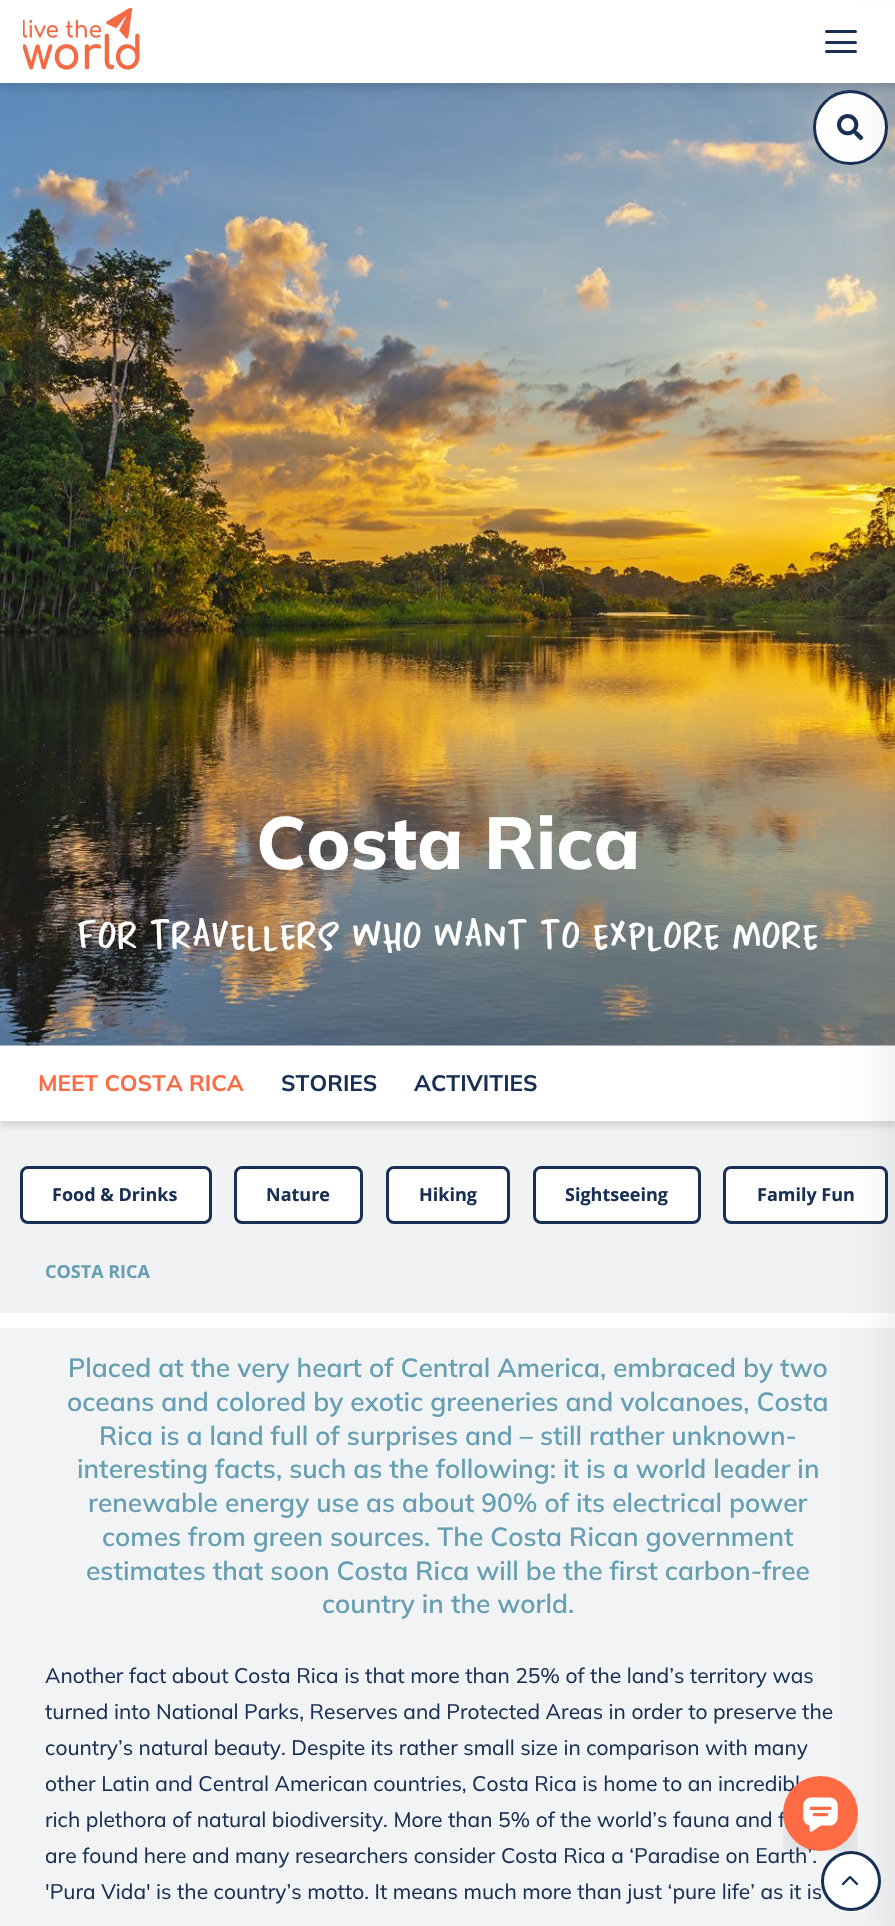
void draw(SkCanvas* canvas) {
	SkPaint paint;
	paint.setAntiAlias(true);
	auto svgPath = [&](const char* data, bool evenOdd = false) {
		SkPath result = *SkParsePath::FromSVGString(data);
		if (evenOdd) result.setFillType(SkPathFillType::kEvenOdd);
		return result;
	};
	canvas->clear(0xffffffff);
	canvas->drawImageRect(SkImages::DeferredFromEncodedData(SkData::MakeFromFileName("img3.png")), SkRect::MakeXYWH(0, 83, 895, 963), SkSamplingOptions());
	paint.setColor(0xffffffff);
	canvas->drawCircle(850.5, 127.5, 36, paint);
	paint.setStroke(true);
	paint.setStrokeWidth(3);
	paint.setColor(0xff192f54);
	canvas->drawCircle(850.5, 127.5, 36, paint);
	paint.setStroke(false);
	paint.setColor(0x1a000000);
	paint.setMaskFilter(SkMaskFilter::MakeBlur(kNormal_SkBlurStyle, 3));
	canvas->drawRect(SkRect::MakeXYWH(0, 6, 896, 83), paint);
	paint.setMaskFilter(nullptr);
	canvas->drawImageRect(SkImages::DeferredFromEncodedData(SkData::MakeFromFileName("img2.png")), SkRect::MakeXYWH(837, 114, 27, 27), SkSamplingOptions());
	paint.setColor(0xfff1f2f4);
	canvas->drawRect(SkRect::MakeXYWH(0, 1121, 895, 192), paint);
	paint.setColor(0x1a000000);
	paint.setMaskFilter(SkMaskFilter::MakeBlur(kNormal_SkBlurStyle, 3));
	canvas->drawRect(SkRect::MakeXYWH(0, 1052, 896, 75), paint);
	paint.setMaskFilter(nullptr);
	paint.setColor(0xffffffff);
	canvas->drawRect(SkRect::MakeXYWH(0, 1048, 895, 73), paint);
	canvas->drawRoundRect(SkRect::MakeXYWH(724.5, 1167.5, 162, 55), 6.5, 6.5, paint);
	paint.setStroke(true);
	paint.setColor(0xff192f54);
	canvas->drawRoundRect(SkRect::MakeXYWH(724.5, 1167.5, 162, 55), 6.5, 6.5, paint);
	paint.setStroke(false);
	paint.setColor(0xfff1f3f5);
	canvas->drawRect(SkRect::MakeXYWH(0, 1328, 895, 598), paint);
	paint.setColor(0x1a000000);
	paint.setMaskFilter(SkMaskFilter::MakeBlur(kNormal_SkBlurStyle, 22.5));
	canvas->drawRect(SkRect::MakeXYWH(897, 30, 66, 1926), paint);
	paint.setMaskFilter(nullptr);
	paint.setColor(0xffffffff);
	canvas->drawRect(SkRect::MakeXYWH(0, 1, 895, 82), paint);
	canvas->drawImageRect(SkImages::DeferredFromEncodedData(SkData::MakeFromFileName("img1.png")), SkRect::MakeXYWH(23, 8, 117, 62), SkSamplingOptions());
	paint.setColor(0xff192f54);
	canvas->drawRoundRect(SkRect::MakeXYWH(825, 30, 32, 3), 1.5, 1.5, paint);
	canvas->drawRoundRect(SkRect::MakeXYWH(825, 41, 32, 3), 1.5, 1.5, paint);
	canvas->drawRoundRect(SkRect::MakeXYWH(825, 50, 32, 3), 1.5, 1.5, paint);
	SkFont f1(fontMgr->matchFamilyStyle("Mulish", SkFontStyle(800, SkFontStyle::kNormal_Width, SkFontStyle::kUpright_Slant)), 73.5);
	f1.setSubpixel(true);
	paint.setColor(0xffffffff);
	canvas->drawString("Costa Rica", 256, 869, f1, paint);
	SkFont f2(fontMgr->matchFamilyStyle("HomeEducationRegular", SkFontStyle::Normal()), 52.5);
	f2.setSubpixel(true);
	canvas->drawString("For travellers who want to explore more", 77, 953, f2, paint);
	SkFont f3(fontMgr->matchFamilyStyle("Mulish", SkFontStyle::Bold()), 22.5);
	f3.setSubpixel(true);
	paint.setColor(0xfffc6b43);
	canvas->drawString("MEET COSTA RICA", 38, 1091, f3, paint);
	paint.setColor(0xff192f54);
	canvas->drawString("STORIES", 281, 1091, f3, paint);
	canvas->drawString("ACTIVITIES", 414, 1091, f3, paint);
	paint.setColor(0xffffffff);
	canvas->drawRoundRect(SkRect::MakeXYWH(21.5, 1167.5, 189, 55), 6.5, 6.5, paint);
	paint.setStroke(true);
	paint.setColor(0xff192f54);
	canvas->drawRoundRect(SkRect::MakeXYWH(21.5, 1167.5, 189, 55), 6.5, 6.5, paint);
	SkFont f4(fontMgr->matchFamilyStyle("Open Sans", SkFontStyle::Bold()), 18);
	f4.setSubpixel(true);
	paint.setStroke(false);
	canvas->drawString("Food & Drinks", 52, 1201, f4, paint);
	paint.setColor(0xffffffff);
	canvas->drawRoundRect(SkRect::MakeXYWH(235.5, 1167.5, 126, 55), 6.5, 6.5, paint);
	paint.setStroke(true);
	paint.setColor(0xff192f54);
	canvas->drawRoundRect(SkRect::MakeXYWH(235.5, 1167.5, 126, 55), 6.5, 6.5, paint);
	paint.setStroke(false);
	canvas->drawString("Nature", 266, 1201, f4, paint);
	paint.setColor(0xffffffff);
	canvas->drawRoundRect(SkRect::MakeXYWH(387.5, 1167.5, 121, 55), 6.5, 6.5, paint);
	paint.setStroke(true);
	paint.setColor(0xff192f54);
	canvas->drawRoundRect(SkRect::MakeXYWH(387.5, 1167.5, 121, 55), 6.5, 6.5, paint);
	paint.setStroke(false);
	canvas->drawString("Hiking", 419, 1201, f4, paint);
	paint.setColor(0xffffffff);
	canvas->drawRoundRect(SkRect::MakeXYWH(534.5, 1167.5, 165, 55), 6.5, 6.5, paint);
	paint.setStroke(true);
	paint.setColor(0xff192f54);
	canvas->drawRoundRect(SkRect::MakeXYWH(534.5, 1167.5, 165, 55), 6.5, 6.5, paint);
	paint.setStroke(false);
	canvas->drawString("Sightseeing", 565, 1201, f4, paint);
	canvas->drawString("Family Fun", 757, 1201, f4, paint);
	paint.setColor(0xff669fb2);
	canvas->drawString("COSTA RICA", 45, 1278, f4, paint);
	SkFont f5(fontMgr->matchFamilyStyle("Mulish", SkFontStyle(600, SkFontStyle::kNormal_Width, SkFontStyle::kUpright_Slant)), 26.25);
	f5.setSubpixel(true);
	canvas->drawString("Placed at the very heart of Central America, embraced by two", 68, 1377, f5, paint);
	canvas->drawString("oceans and colored by exotic greeneries and volcanoes, Costa", 67, 1411, f5, paint);
	canvas->drawString("Rica is a land full of surprises and – still rather unknown-", 99, 1445, f5, paint);
	canvas->drawString("interesting facts, such as the following: it is a world leader in", 77, 1478, f5, paint);
	canvas->drawString("renewable energy use as about 90% of its electrical power", 88, 1512, f5, paint);
	canvas->drawString("comes from green sources. The Costa Rican government", 102, 1546, f5, paint);
	canvas->drawString("estimates that soon Costa Rica will be the first carbon-free", 86, 1580, f5, paint);
	canvas->drawString("country in the world.", 322, 1613, f5, paint);
	SkFont f6(fontMgr->matchFamilyStyle("Mulish", SkFontStyle::Normal()), 21);
	f6.setSubpixel(true);
	paint.setColor(0xff192f54);
	canvas->drawString("Another fact about Costa Rica is that more than 25% of the land’s territory was", 45, 1683, f6, paint);
	canvas->drawString("turned into National Parks, Reserves and Protected Areas in order to preserve the", 45, 1719, f6, paint);
	canvas->drawString("country’s natural beauty. Despite its rather small size in comparison with many", 45, 1755, f6, paint);
	canvas->drawString("other Latin and Central American countries, Costa Rica is home to an incredibl", 45, 1791, f6, paint);
	canvas->drawString("rich plethora of natural biodiversity. More than 5% of the world’s fauna and f", 45, 1827, f6, paint);
	canvas->drawString("are found here and many researchers consider Costa Rica a ‘Paradise on Earth’.", 45, 1863, f6, paint);
	canvas->drawString("'Pura Vida' is the country’s motto. It means much more than just ‘pure life’ as it is", 45, 1899, f6, paint);
	canvas->drawImageRect(SkImages::DeferredFromEncodedData(SkData::MakeFromFileName("img4.png")), SkRect::MakeXYWH(783, 1776, 75, 75), SkSamplingOptions());
	paint.setColor(0xffffffff);
	canvas->drawCircle(851, 1881, 28.5, paint);
	paint.setStroke(true);
	paint.setColor(0xff192f54);
	canvas->drawCircle(851, 1881, 28.5, paint);
	paint.setStrokeWidth(2.4);
	paint.setStrokeCap(SkPaint::kRound_Cap);
	paint.setStrokeJoin(SkPaint::kRound_Join);
	canvas->drawPath(svgPath("M857 1884L850 1877L843 1884"), paint);
}
